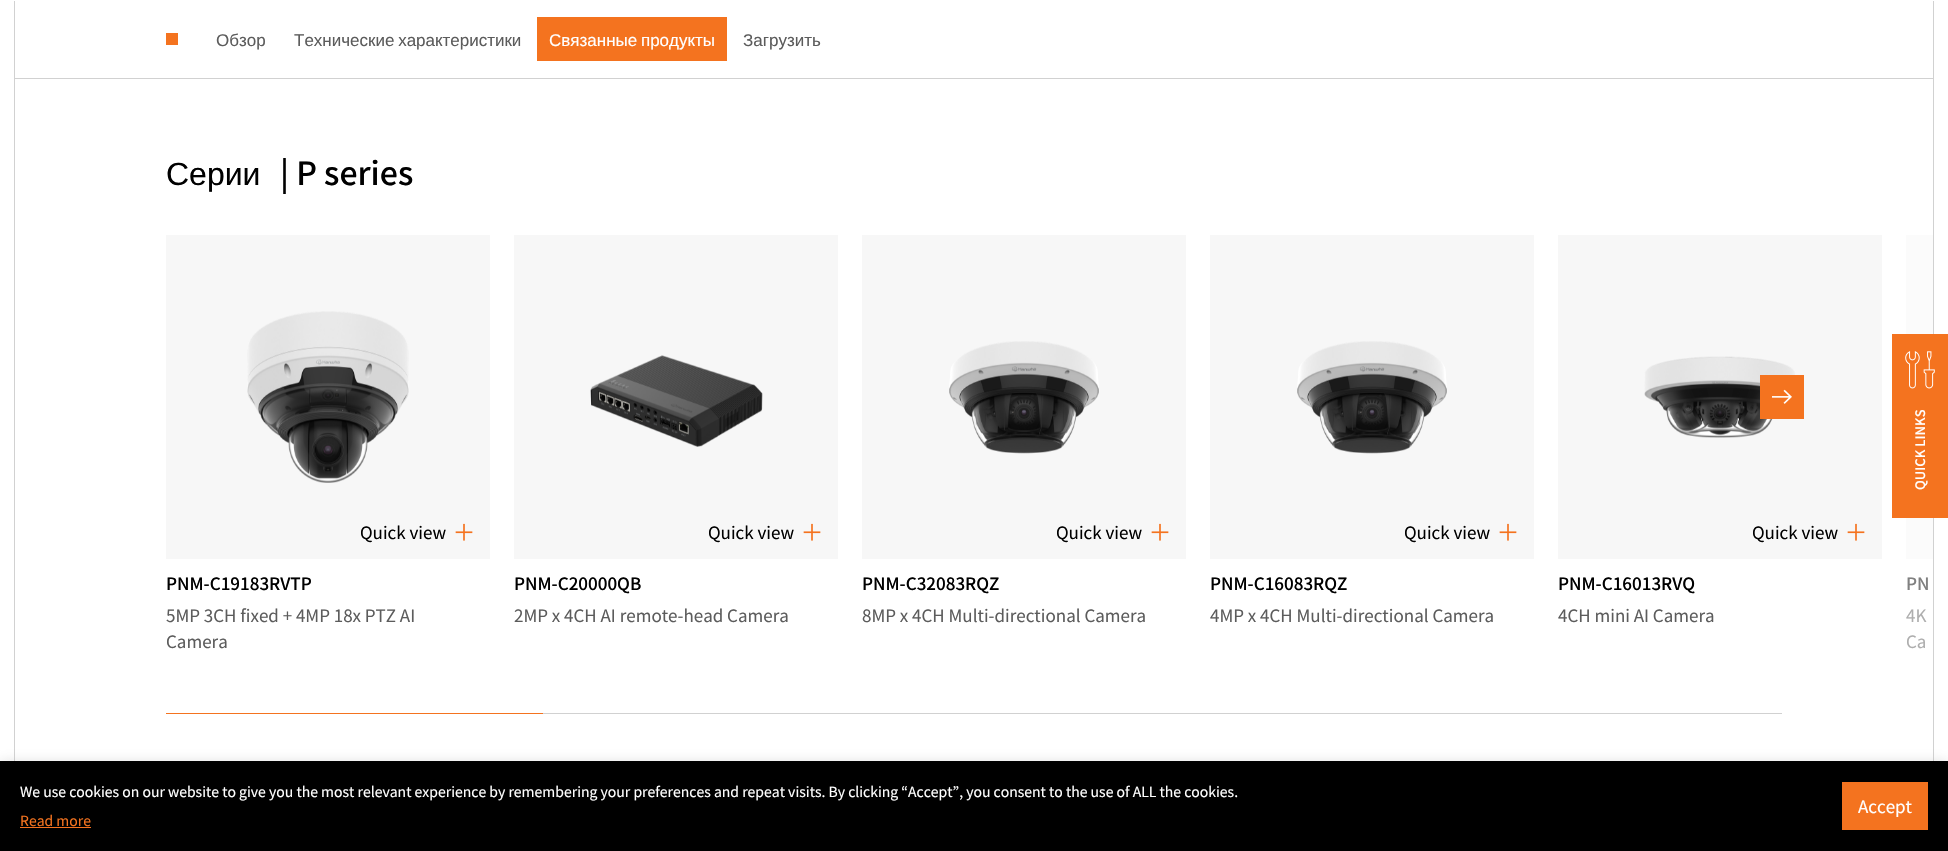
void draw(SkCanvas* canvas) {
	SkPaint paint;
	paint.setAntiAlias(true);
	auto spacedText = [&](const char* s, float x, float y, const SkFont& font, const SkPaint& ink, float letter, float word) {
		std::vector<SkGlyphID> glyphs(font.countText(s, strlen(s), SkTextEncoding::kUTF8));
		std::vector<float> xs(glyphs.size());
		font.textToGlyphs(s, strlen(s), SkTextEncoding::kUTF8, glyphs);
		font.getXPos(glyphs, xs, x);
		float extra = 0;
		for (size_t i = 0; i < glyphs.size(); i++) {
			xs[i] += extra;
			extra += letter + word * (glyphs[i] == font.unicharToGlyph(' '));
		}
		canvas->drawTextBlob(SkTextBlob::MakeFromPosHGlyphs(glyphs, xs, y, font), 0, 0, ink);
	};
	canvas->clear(0xffffffff);
	paint.setColor(0xffd1d1d1);
	canvas->drawRect(SkRect::MakeXYWH(1933, 0, 1, 761), paint);
	canvas->drawRect(SkRect::MakeXYWH(14, 0, 1, 761), paint);
	paint.setColor(0xffffffff);
	canvas->drawRect(SkRect::MakeXYWH(14, 0, 1920, 1), paint);
	paint.setColor(0xffd1d1d1);
	canvas->drawRect(SkRect::MakeXYWH(15, 78, 1918, 1), paint);
	paint.setColor(0xfff4731f);
	canvas->drawRect(SkRect::MakeXYWH(166, 33, 12, 12), paint);
	SkFont f1(fontMgr->matchFamilyStyle("Liberation Sans", SkFontStyle::Normal()), 17);
	f1.setSubpixel(true);
	paint.setColor(0xff5c5c5c);
	canvas->drawString("Обзор", 216, 46, f1, paint);
	spacedText("Технические характеристики", 294, 46, f1, paint, 0, -1);
	paint.setColor(0xfff4731f);
	canvas->drawRect(SkRect::MakeXYWH(537, 17, 190, 44), paint);
	paint.setColor(0xffffffff);
	spacedText("Связанные продукты", 549, 46, f1, paint, 0, -1);
	paint.setColor(0xff5c5c5c);
	canvas->drawString("Загрузить", 743, 46, f1, paint);
	SkFont f2(fontMgr->matchFamilyStyle("Liberation Sans", SkFontStyle::Normal()), 32);
	f2.setSubpixel(true);
	paint.setColor(0xff000000);
	canvas->drawString("Серии", 166, 185, f2, paint);
	SkFont f3(fontMgr->matchFamilyStyle("Noto Sans KR", SkFontStyle(500, SkFontStyle::kNormal_Width, SkFontStyle::kUpright_Slant)), 32);
	f3.setSubpixel(true);
	canvas->drawString("| P series", 280, 185, f3, paint);
	paint.setColor(0xfff7f7f7);
	canvas->drawRect(SkRect::MakeXYWH(1558, 235, 324, 324), paint);
	canvas->drawImageRect(SkImages::DeferredFromEncodedData(SkData::MakeFromFileName("img6.png")), SkRect::MakeXYWH(1644, 356, 152, 82), SkSamplingOptions());
	paint.setColor(0xfff4731f);
	canvas->drawRect(SkRect::MakeXYWH(1760, 375, 44, 44), paint);
	canvas->drawImageRect(SkImages::DeferredFromEncodedData(SkData::MakeFromFileName("img1.png")), SkRect::MakeXYWH(1772, 389, 20, 15), SkSamplingOptions());
	paint.setColor(0xfff7f7f7);
	canvas->drawRect(SkRect::MakeXYWH(166, 235, 324, 324), paint);
	canvas->drawImageRect(SkImages::DeferredFromEncodedData(SkData::MakeFromFileName("img2.png")), SkRect::MakeXYWH(247, 311, 162, 172), SkSamplingOptions());
	SkFont f4(fontMgr->matchFamilyStyle("Noto Sans KR", SkFontStyle::Normal()), 17);
	f4.setSubpixel(true);
	paint.setColor(0xff000000);
	canvas->drawString("Quick view", 360, 539, f4, paint);
	canvas->drawImageRect(SkImages::DeferredFromEncodedData(SkData::MakeFromFileName("img3.png")), SkRect::MakeXYWH(455, 523, 18, 18), SkSamplingOptions());
	SkFont f5(fontMgr->matchFamilyStyle("Noto Sans KR", SkFontStyle(500, SkFontStyle::kNormal_Width, SkFontStyle::kUpright_Slant)), 17);
	f5.setSubpixel(true);
	canvas->drawString("PNM-C19183RVTP", 166, 590, f5, paint);
	paint.setColor(0xff5c5c5c);
	canvas->drawString("5MP 3CH fixed + 4MP 18x PTZ AI", 166, 622, f4, paint);
	canvas->drawString("Camera", 166, 648, f4, paint);
	paint.setColor(0xfff7f7f7);
	canvas->drawRect(SkRect::MakeXYWH(514, 235, 324, 324), paint);
	canvas->drawImageRect(SkImages::DeferredFromEncodedData(SkData::MakeFromFileName("img4.png")), SkRect::MakeXYWH(590, 355, 173, 92), SkSamplingOptions());
	paint.setColor(0xff000000);
	canvas->drawString("Quick view", 708, 539, f4, paint);
	canvas->drawImageRect(SkImages::DeferredFromEncodedData(SkData::MakeFromFileName("img3.png")), SkRect::MakeXYWH(803, 523, 18, 18), SkSamplingOptions());
	canvas->drawString("PNM-C20000QB", 514, 590, f5, paint);
	paint.setColor(0xff5c5c5c);
	canvas->drawString("2MP x 4CH AI remote-head Camera", 514, 622, f4, paint);
	paint.setColor(0xfff7f7f7);
	canvas->drawRect(SkRect::MakeXYWH(862, 235, 324, 324), paint);
	canvas->drawImageRect(SkImages::DeferredFromEncodedData(SkData::MakeFromFileName("img5.png")), SkRect::MakeXYWH(949, 341, 150, 113), SkSamplingOptions());
	paint.setColor(0xff000000);
	canvas->drawString("Quick view", 1056, 539, f4, paint);
	canvas->drawImageRect(SkImages::DeferredFromEncodedData(SkData::MakeFromFileName("img3.png")), SkRect::MakeXYWH(1151, 523, 18, 18), SkSamplingOptions());
	canvas->drawString("PNM-C32083RQZ", 862, 590, f5, paint);
	paint.setColor(0xff5c5c5c);
	canvas->drawString("8MP x 4CH Multi-directional Camera", 862, 622, f4, paint);
	paint.setColor(0xfff7f7f7);
	canvas->drawRect(SkRect::MakeXYWH(1210, 235, 324, 324), paint);
	canvas->drawImageRect(SkImages::DeferredFromEncodedData(SkData::MakeFromFileName("img5.png")), SkRect::MakeXYWH(1297, 341, 150, 113), SkSamplingOptions());
	paint.setColor(0xff000000);
	canvas->drawString("Quick view", 1404, 539, f4, paint);
	canvas->drawImageRect(SkImages::DeferredFromEncodedData(SkData::MakeFromFileName("img3.png")), SkRect::MakeXYWH(1499, 523, 18, 18), SkSamplingOptions());
	canvas->drawString("PNM-C16083RQZ", 1210, 590, f5, paint);
	paint.setColor(0xff5c5c5c);
	canvas->drawString("4MP x 4CH Multi-directional Camera", 1210, 622, f4, paint);
	paint.setColor(0xff000000);
	canvas->drawString("Quick view", 1752, 539, f4, paint);
	canvas->drawImageRect(SkImages::DeferredFromEncodedData(SkData::MakeFromFileName("img3.png")), SkRect::MakeXYWH(1847, 523, 18, 18), SkSamplingOptions());
	canvas->drawString("PNM-C16013RVQ", 1558, 590, f5, paint);
	paint.setColor(0xff5c5c5c);
	canvas->drawString("4CH mini AI Camera", 1558, 622, f4, paint);
	paint.setColor(0xfffbfbfb);
	canvas->drawRect(SkRect::MakeXYWH(1906, 235, 27, 324), paint);
	paint.setColor(0xff808080);
	canvas->drawString("PN", 1906, 590, f5, paint);
	paint.setColor(0xffaeaeae);
	canvas->drawString("4K", 1906, 622, f4, paint);
	canvas->drawString("Ca", 1906, 648, f4, paint);
	paint.setColor(0xffd1d1d1);
	canvas->drawRect(SkRect::MakeXYWH(543, 713, 1239, 1), paint);
	paint.setColor(0xfff4731f);
	canvas->drawRect(SkRect::MakeXYWH(166, 713, 377, 1), paint);
	canvas->drawRect(SkRect::MakeXYWH(1892, 334, 56, 184), paint);
	canvas->drawImageRect(SkImages::DeferredFromEncodedData(SkData::MakeFromFileName("img7.png")), SkRect::MakeXYWH(1905, 351, 30, 38), SkSamplingOptions());
	SkFont f6(fontMgr->matchFamilyStyle("Noto Sans KR", SkFontStyle(500, SkFontStyle::kNormal_Width, SkFontStyle::kUpright_Slant)), 13);
	f6.setSubpixel(true);
	paint.setColor(0xffffffff);
	canvas->save();
	canvas->rotate(-90, 1925, 490);
	canvas->drawString("QUICK LINKS", 1925, 490, f6, paint);
	canvas->restore();
	paint.setColor(0x4dacabab);
	paint.setMaskFilter(SkMaskFilter::MakeBlur(kNormal_SkBlurStyle, 5));
	canvas->drawRect(SkRect::MakeXYWH(0, 760, 1948, 90), paint);
	paint.setMaskFilter(nullptr);
	paint.setColor(0xff000000);
	canvas->drawRect(SkRect::MakeXYWH(0, 761, 1948, 90), paint);
	SkFont f7(fontMgr->matchFamilyStyle("Noto Sans KR", SkFontStyle::Normal()), 14);
	f7.setSubpixel(true);
	paint.setColor(0xffffffff);
	canvas->drawString("We use cookies on our website to give you the most relevant experience by remembering your preferences and repeat visits. By clicking “Accept”, you consent to the use of ALL the cookies.", 20, 797, f7, paint);
	paint.setColor(0xfff4731f);
	canvas->drawString("Read more", 20, 826, f7, paint);
	canvas->drawRect(SkRect::MakeXYWH(20, 827, 71, 1), paint);
	canvas->drawRect(SkRect::MakeXYWH(1842, 782, 86, 48), paint);
	paint.setColor(0xffffffff);
	canvas->drawString("Accept", 1858, 813, f4, paint);
}
